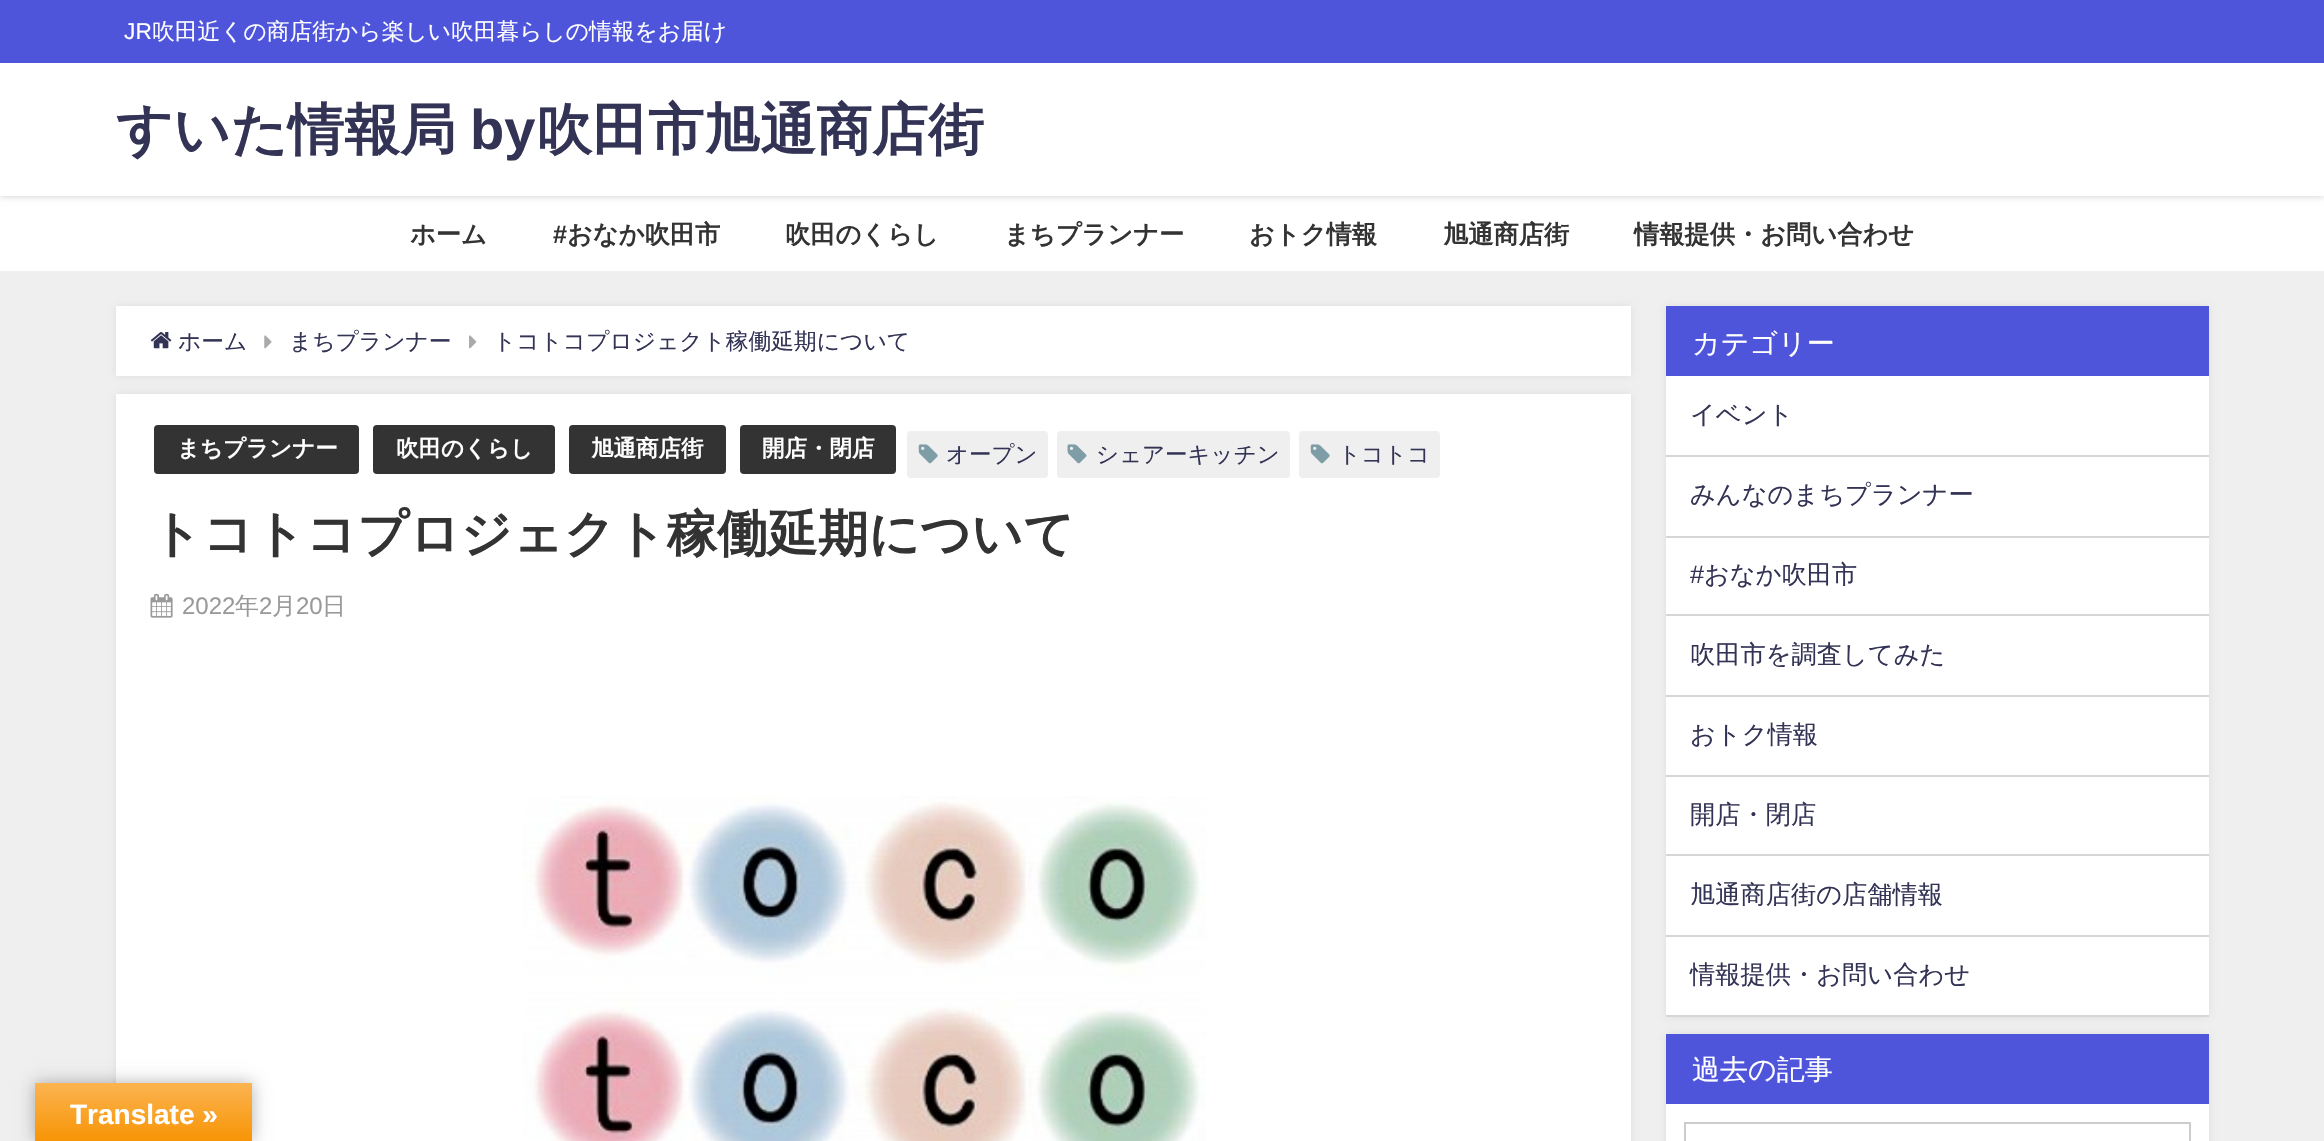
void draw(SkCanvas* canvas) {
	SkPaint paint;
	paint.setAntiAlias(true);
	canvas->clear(0xffefefef);
	paint.setColor(0xffffffff);
	canvas->drawRect(SkRect::MakeXYWH(0, 196, 2324, 75), paint);
	paint.setColor(0x33000000);
	paint.setMaskFilter(SkMaskFilter::MakeBlur(kNormal_SkBlurStyle, 3.5));
	canvas->drawRect(SkRect::MakeXYWH(0, 0, 2324, 196), paint);
	paint.setMaskFilter(nullptr);
	paint.setColor(0xffffffff);
	canvas->drawRect(SkRect::MakeXYWH(0, 63, 2324, 133), paint);
	paint.setColor(0xff4e55db);
	canvas->drawRect(SkRect::MakeXYWH(0, 0, 2324, 63), paint);
	SkFont f1(fontMgr->matchFamilyStyle("Liberation Sans", SkFontStyle::Normal()), 22.75);
	f1.setSubpixel(true);
	paint.setColor(0xffffffff);
	canvas->drawString("JR", 124, 39, f1, paint);
	SkFont f2(fontMgr->matchFamilyStyle("WenQuanYi Zen Hei", SkFontStyle(500, SkFontStyle::kNormal_Width, SkFontStyle::kUpright_Slant)), 22.75);
	f2.setSubpixel(true);
	canvas->drawString("吹田近くの商店街から楽しい吹田暮らしの情報をお届け", 152, 39, f2, paint);
	SkFont f3(fontMgr->matchFamilyStyle("WenQuanYi Zen Hei", SkFontStyle::Bold()), 56);
	f3.setSubpixel(true);
	paint.setColor(0xff333355);
	canvas->drawString("すいた情報局", 116, 149, f3, paint);
	SkFont f4(fontMgr->matchFamilyStyle("Liberation Sans", SkFontStyle::Bold()), 56);
	f4.setSubpixel(true);
	canvas->drawString("by", 470, 149, f4, paint);
	canvas->drawString("吹田市旭通商店街", 536, 149, f3, paint);
	SkFont f5(fontMgr->matchFamilyStyle("WenQuanYi Zen Hei", SkFontStyle::Bold()), 25.25);
	f5.setSubpixel(true);
	paint.setColor(0xff333333);
	canvas->drawString("ホーム", 410, 243, f5, paint);
	SkFont f6(fontMgr->matchFamilyStyle("Liberation Sans", SkFontStyle::Bold()), 25.25);
	f6.setSubpixel(true);
	canvas->drawString("#", 553, 243, f6, paint);
	canvas->drawString("おなか吹田市", 567, 243, f5, paint);
	canvas->drawString("吹田のくらし", 785, 243, f5, paint);
	canvas->drawString("まちプランナー", 1004, 243, f5, paint);
	canvas->drawString("おトク情報", 1249, 243, f5, paint);
	canvas->drawString("旭通商店街", 1443, 243, f5, paint);
	canvas->drawString("情報提供・お問い合わせ", 1634, 243, f5, paint);
	paint.setColor(0x33969696);
	paint.setMaskFilter(SkMaskFilter::MakeBlur(kNormal_SkBlurStyle, 4.5));
	canvas->drawRect(SkRect::MakeXYWH(116, 306, 1515, 70), paint);
	paint.setMaskFilter(nullptr);
	paint.setColor(0xffffffff);
	canvas->drawRect(SkRect::MakeXYWH(116, 306, 1515, 70), paint);
	canvas->drawImageRect(SkImages::DeferredFromEncodedData(SkData::MakeFromFileName("img1.png")), SkRect::MakeXYWH(150, 332, 22, 17), SkSamplingOptions());
	paint.setColor(0xff333355);
	canvas->drawString("ホーム", 178, 349, f2, paint);
	canvas->drawImageRect(SkImages::DeferredFromEncodedData(SkData::MakeFromFileName("img2.png")), SkRect::MakeXYWH(264, 335, 8, 14), SkSamplingOptions());
	canvas->drawString("まちプランナー", 289, 349, f2, paint);
	canvas->drawImageRect(SkImages::DeferredFromEncodedData(SkData::MakeFromFileName("img3.png")), SkRect::MakeXYWH(469, 335, 8, 14), SkSamplingOptions());
	canvas->drawString("トコトコプロジェクト稼働延期について", 493, 349, f2, paint);
	paint.setColor(0x33969696);
	paint.setMaskFilter(SkMaskFilter::MakeBlur(kNormal_SkBlurStyle, 4.5));
	canvas->drawRect(SkRect::MakeXYWH(116, 394, 1515, 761), paint);
	paint.setMaskFilter(nullptr);
	paint.setColor(0xffffffff);
	canvas->drawRect(SkRect::MakeXYWH(116, 394, 1515, 747), paint);
	paint.setColor(0xff333333);
	canvas->drawRoundRect(SkRect::MakeXYWH(154, 425, 205, 49), 4, 4, paint);
	SkFont f7(fontMgr->matchFamilyStyle("WenQuanYi Zen Hei", SkFontStyle::Bold()), 22.5);
	f7.setSubpixel(true);
	paint.setColor(0xffffffff);
	canvas->drawString("まちプランナー", 177, 456, f7, paint);
	paint.setColor(0xff333333);
	canvas->drawRoundRect(SkRect::MakeXYWH(373, 425, 182, 49), 4, 4, paint);
	paint.setColor(0xffffffff);
	canvas->drawString("吹田のくらし", 396, 456, f7, paint);
	paint.setColor(0xff333333);
	canvas->drawRoundRect(SkRect::MakeXYWH(569, 425, 157, 49), 4, 4, paint);
	paint.setColor(0xffffffff);
	canvas->drawString("旭通商店街", 591, 456, f7, paint);
	paint.setColor(0xff333333);
	canvas->drawRoundRect(SkRect::MakeXYWH(740, 425, 156, 49), 4, 4, paint);
	paint.setColor(0xffffffff);
	canvas->drawString("開店・閉店", 762, 456, f7, paint);
	paint.setColor(0xffefefef);
	canvas->drawRoundRect(SkRect::MakeXYWH(907, 431, 141, 47), 4, 4, paint);
	canvas->drawImageRect(SkImages::DeferredFromEncodedData(SkData::MakeFromFileName("img4.png")), SkRect::MakeXYWH(918, 444, 20, 20), SkSamplingOptions());
	SkFont f8(fontMgr->matchFamilyStyle("WenQuanYi Zen Hei", SkFontStyle(500, SkFontStyle::kNormal_Width, SkFontStyle::kUpright_Slant)), 22.5);
	f8.setSubpixel(true);
	paint.setColor(0xff333355);
	canvas->drawString("オープン", 946, 462, f8, paint);
	paint.setColor(0xffefefef);
	canvas->drawRoundRect(SkRect::MakeXYWH(1057, 431, 233, 47), 4, 4, paint);
	canvas->drawImageRect(SkImages::DeferredFromEncodedData(SkData::MakeFromFileName("img5.png")), SkRect::MakeXYWH(1067, 444, 20, 20), SkSamplingOptions());
	paint.setColor(0xff333355);
	canvas->drawString("シェアーキッチン", 1096, 462, f8, paint);
	paint.setColor(0xffefefef);
	canvas->drawRoundRect(SkRect::MakeXYWH(1299, 431, 141, 47), 4, 4, paint);
	canvas->drawImageRect(SkImages::DeferredFromEncodedData(SkData::MakeFromFileName("img4.png")), SkRect::MakeXYWH(1310, 444, 20, 20), SkSamplingOptions());
	paint.setColor(0xff333355);
	canvas->drawString("トコトコ", 1338, 462, f8, paint);
	SkFont f9(fontMgr->matchFamilyStyle("WenQuanYi Zen Hei", SkFontStyle::Bold()), 50.4);
	f9.setSubpixel(true);
	paint.setColor(0xff333333);
	canvas->drawString("トコトコプロジェクト稼働延期について", 151, 551, f9, paint);
	canvas->drawImageRect(SkImages::DeferredFromEncodedData(SkData::MakeFromFileName("img6.png")), SkRect::MakeXYWH(150, 593, 23, 25), SkSamplingOptions());
	SkFont f10(fontMgr->matchFamilyStyle("Liberation Sans", SkFontStyle::Normal()), 24);
	f10.setSubpixel(true);
	paint.setColor(0xff999999);
	canvas->drawString("2022", 182, 614, f10, paint);
	SkFont f11(fontMgr->matchFamilyStyle("WenQuanYi Zen Hei", SkFontStyle(500, SkFontStyle::kNormal_Width, SkFontStyle::kUpright_Slant)), 24);
	f11.setSubpixel(true);
	canvas->drawString("年", 235, 614, f11, paint);
	canvas->drawString("2", 259, 614, f10, paint);
	canvas->drawString("月", 272, 614, f11, paint);
	canvas->drawString("20", 296, 614, f10, paint);
	canvas->drawString("日", 322, 614, f11, paint);
	canvas->drawImageRect(SkImages::DeferredFromEncodedData(SkData::MakeFromFileName("img7.png")), SkRect::MakeXYWH(523, 796, 683, 345), SkSamplingOptions());
	paint.setColor(0x33969696);
	paint.setMaskFilter(SkMaskFilter::MakeBlur(kNormal_SkBlurStyle, 4.5));
	canvas->drawRect(SkRect::MakeXYWH(1666, 306, 543, 711), paint);
	paint.setMaskFilter(nullptr);
	paint.setColor(0xffffffff);
	canvas->drawRect(SkRect::MakeXYWH(1666, 376, 543, 639), paint);
	paint.setColor(0xff4e55db);
	canvas->drawRect(SkRect::MakeXYWH(1666, 306, 543, 70), paint);
	SkFont f12(fontMgr->matchFamilyStyle("WenQuanYi Zen Hei", SkFontStyle(500, SkFontStyle::kNormal_Width, SkFontStyle::kUpright_Slant)), 28);
	f12.setSubpixel(true);
	paint.setColor(0xffffffff);
	canvas->drawString("カテゴリー", 1692, 353, f12, paint);
	paint.setColor(0xffd6d6d6);
	canvas->drawRect(SkRect::MakeXYWH(1666, 455, 543, 2), paint);
	SkFont f13(fontMgr->matchFamilyStyle("WenQuanYi Zen Hei", SkFontStyle(500, SkFontStyle::kNormal_Width, SkFontStyle::kUpright_Slant)), 25.25);
	f13.setSubpixel(true);
	paint.setColor(0xff333355);
	canvas->drawString("イベント", 1690, 423, f13, paint);
	paint.setColor(0xffd6d6d6);
	canvas->drawRect(SkRect::MakeXYWH(1666, 536, 543, 2), paint);
	paint.setColor(0xff333355);
	canvas->drawString("みんなのまちプランナー", 1690, 503, f13, paint);
	paint.setColor(0xffd6d6d6);
	canvas->drawRect(SkRect::MakeXYWH(1666, 614, 543, 2), paint);
	SkFont f14(fontMgr->matchFamilyStyle("Liberation Sans", SkFontStyle::Normal()), 25.25);
	f14.setSubpixel(true);
	paint.setColor(0xff333355);
	canvas->drawString("#", 1690, 583, f14, paint);
	canvas->drawString("おなか吹田市", 1704, 583, f13, paint);
	paint.setColor(0xffd6d6d6);
	canvas->drawRect(SkRect::MakeXYWH(1666, 695, 543, 2), paint);
	paint.setColor(0xff333355);
	canvas->drawString("吹田市を調査してみた", 1690, 663, f13, paint);
	paint.setColor(0xffd6d6d6);
	canvas->drawRect(SkRect::MakeXYWH(1666, 775, 543, 2), paint);
	paint.setColor(0xff333355);
	canvas->drawString("おトク情報", 1690, 743, f13, paint);
	paint.setColor(0xffd6d6d6);
	canvas->drawRect(SkRect::MakeXYWH(1666, 854, 543, 2), paint);
	paint.setColor(0xff333355);
	canvas->drawString("開店・閉店", 1690, 823, f13, paint);
	paint.setColor(0xffd6d6d6);
	canvas->drawRect(SkRect::MakeXYWH(1666, 935, 543, 2), paint);
	paint.setColor(0xff333355);
	canvas->drawString("旭通商店街の店舗情報", 1690, 903, f13, paint);
	paint.setColor(0xffd6d6d6);
	canvas->drawRect(SkRect::MakeXYWH(1666, 1015, 543, 2), paint);
	paint.setColor(0xff333355);
	canvas->drawString("情報提供・お問い合わせ", 1690, 983, f13, paint);
	paint.setColor(0x33969696);
	paint.setMaskFilter(SkMaskFilter::MakeBlur(kNormal_SkBlurStyle, 4.5));
	canvas->drawRect(SkRect::MakeXYWH(1666, 1034, 543, 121), paint);
	paint.setMaskFilter(nullptr);
	paint.setColor(0xffffffff);
	canvas->drawRect(SkRect::MakeXYWH(1666, 1104, 543, 37), paint);
	paint.setColor(0xff4e55db);
	canvas->drawRect(SkRect::MakeXYWH(1666, 1034, 543, 70), paint);
	paint.setColor(0xffffffff);
	canvas->drawString("過去の記事", 1692, 1079, f12, paint);
	paint.setStroke(true);
	paint.setStrokeWidth(2);
	paint.setColor(0xffcccccc);
	canvas->drawRect(SkRect::MakeXYWH(1685, 1123, 505, 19), paint);
	paint.setStroke(false);
	paint.setColor(0x4d000000);
	paint.setMaskFilter(SkMaskFilter::MakeBlur(kNormal_SkBlurStyle, 8));
	canvas->drawRect(SkRect::MakeXYWH(35, 1083, 217, 58), paint);
	paint.setMaskFilter(nullptr);
	{
		const SkColor colors[] = {0xfffbb450, 0xfff89406};
		const float stops[] = {0, 1};
		const SkPoint ends[] = {{144, 1083}, {144, 1141}};
		paint.setShader(SkGradientShader::MakeLinear(ends, colors, stops, 2, SkTileMode::kClamp));
		paint.setAlpha(255);
	}
	canvas->drawRect(SkRect::MakeXYWH(35, 1083, 217, 58), paint);
	SkFont f15(fontMgr->matchFamilyStyle("Liberation Sans", SkFontStyle::Bold()), 28);
	f15.setSubpixel(true);
	paint.setShader(nullptr);
	paint.setColor(0xffffffff);
	canvas->drawString("Translate »", 70, 1124, f15, paint);
}
